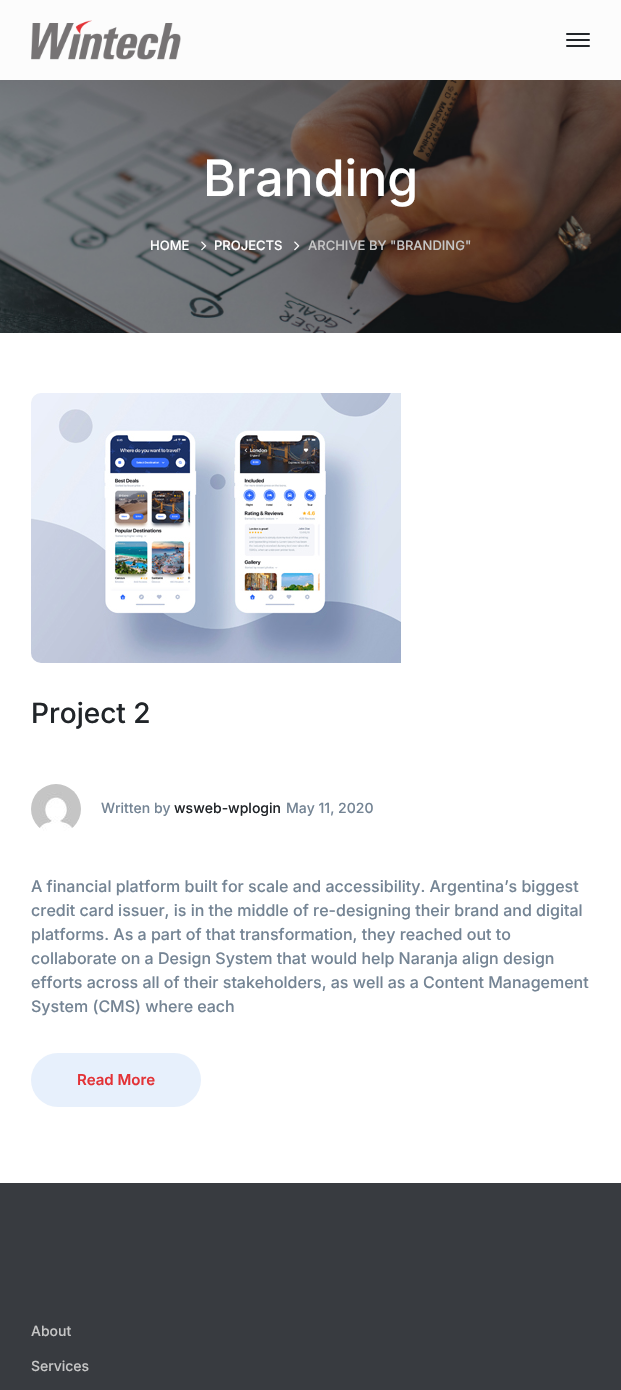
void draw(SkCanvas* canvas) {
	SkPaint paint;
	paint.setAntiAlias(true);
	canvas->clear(0xffffffff);
	paint.setColor(0xfffcfcfc);
	canvas->drawRect(SkRect::MakeXYWH(0, 0, 621, 80), paint);
	canvas->drawImageRect(SkImages::DeferredFromEncodedData(SkData::MakeFromFileName("img1.png")), SkRect::MakeXYWH(31, 20, 150, 40), SkSamplingOptions());
	paint.setColor(0xff212529);
	canvas->drawRoundRect(SkRect::MakeXYWH(566, 33, 24, 2), 1, 1, paint);
	canvas->drawRoundRect(SkRect::MakeXYWH(566, 39, 24, 2), 1, 1, paint);
	canvas->drawRoundRect(SkRect::MakeXYWH(566, 45, 24, 2), 1, 1, paint);
	canvas->drawImageRect(SkImages::DeferredFromEncodedData(SkData::MakeFromFileName("img2.png")), SkRect::MakeXYWH(0, 80, 621, 253), SkSamplingOptions());
	SkFont f1(fontMgr->matchFamilyStyle("Inter", SkFontStyle(500, SkFontStyle::kNormal_Width, SkFontStyle::kUpright_Slant)), 50);
	f1.setSubpixel(true);
	paint.setColor(0xffffffff);
	canvas->drawString("Branding", 203, 196, f1, paint);
	SkFont f2(fontMgr->matchFamilyStyle("Inter", SkFontStyle(500, SkFontStyle::kNormal_Width, SkFontStyle::kUpright_Slant)), 13);
	f2.setSubpixel(true);
	canvas->drawString("HOME", 150, 250, f2, paint);
	canvas->drawImageRect(SkImages::DeferredFromEncodedData(SkData::MakeFromFileName("img3.png")), SkRect::MakeXYWH(201, 241, 6, 10), SkSamplingOptions());
	canvas->drawString("PROJECTS", 214, 250, f2, paint);
	canvas->drawImageRect(SkImages::DeferredFromEncodedData(SkData::MakeFromFileName("img4.png")), SkRect::MakeXYWH(294, 241, 6, 10), SkSamplingOptions());
	paint.setColor(0xffc6c6c6);
	canvas->drawString("ARCHIVE BY \"BRANDING\"", 308, 250, f2, paint);
	canvas->drawImageRect(SkImages::DeferredFromEncodedData(SkData::MakeFromFileName("img5.png")), SkRect::MakeXYWH(31, 393, 370, 270), SkSamplingOptions());
	SkFont f3(fontMgr->matchFamilyStyle("Inter", SkFontStyle(500, SkFontStyle::kNormal_Width, SkFontStyle::kUpright_Slant)), 28);
	f3.setSubpixel(true);
	paint.setColor(0xff212529);
	canvas->drawString("Project 2", 31, 723, f3, paint);
	canvas->drawImageRect(SkImages::DeferredFromEncodedData(SkData::MakeFromFileName("img6.png")), SkRect::MakeXYWH(31, 784, 50, 47), SkSamplingOptions());
	SkFont f4(fontMgr->matchFamilyStyle("Inter", SkFontStyle(500, SkFontStyle::kNormal_Width, SkFontStyle::kUpright_Slant)), 14);
	f4.setSubpixel(true);
	paint.setColor(0xff748494);
	canvas->drawString("Written by", 101, 813, f4, paint);
	paint.setColor(0xff212529);
	canvas->drawString("wsweb-wplogin", 174, 813, f4, paint);
	paint.setColor(0xff748494);
	canvas->drawString("May 11, 2020", 286, 813, f4, paint);
	SkFont f5(fontMgr->matchFamilyStyle("Inter", SkFontStyle(500, SkFontStyle::kNormal_Width, SkFontStyle::kUpright_Slant)), 16);
	f5.setSubpixel(true);
	canvas->drawString("A financial platform built for scale and accessibility. Argentina’s biggest", 31, 892, f5, paint);
	canvas->drawString("credit card issuer, is in the middle of re-designing their brand and digital", 31, 916, f5, paint);
	canvas->drawString("platforms. As a part of that transformation, they reached out to", 31, 940, f5, paint);
	canvas->drawString("collaborate on a Design System that would help Naranja align design", 31, 964, f5, paint);
	canvas->drawString("efforts across all of their stakeholders, as well as a Content Management", 31, 988, f5, paint);
	canvas->drawString("System (CMS) where each", 31, 1012, f5, paint);
	paint.setColor(0xffe7f0fc);
	canvas->drawRoundRect(SkRect::MakeXYWH(31, 1053, 170, 54), 27, 27, paint);
	SkFont f6(fontMgr->matchFamilyStyle("Inter", SkFontStyle(600, SkFontStyle::kNormal_Width, SkFontStyle::kUpright_Slant)), 15);
	f6.setSubpixel(true);
	paint.setColor(0xffe33337);
	canvas->drawString("Read More", 77, 1085, f6, paint);
	paint.setColor(0xff383b40);
	canvas->drawRect(SkRect::MakeXYWH(0, 1183, 621, 207), paint);
	paint.setColor(0xffc6c6c6);
	canvas->drawString("About", 31, 1336, f4, paint);
	canvas->drawString("Services", 31, 1371, f4, paint);
}
